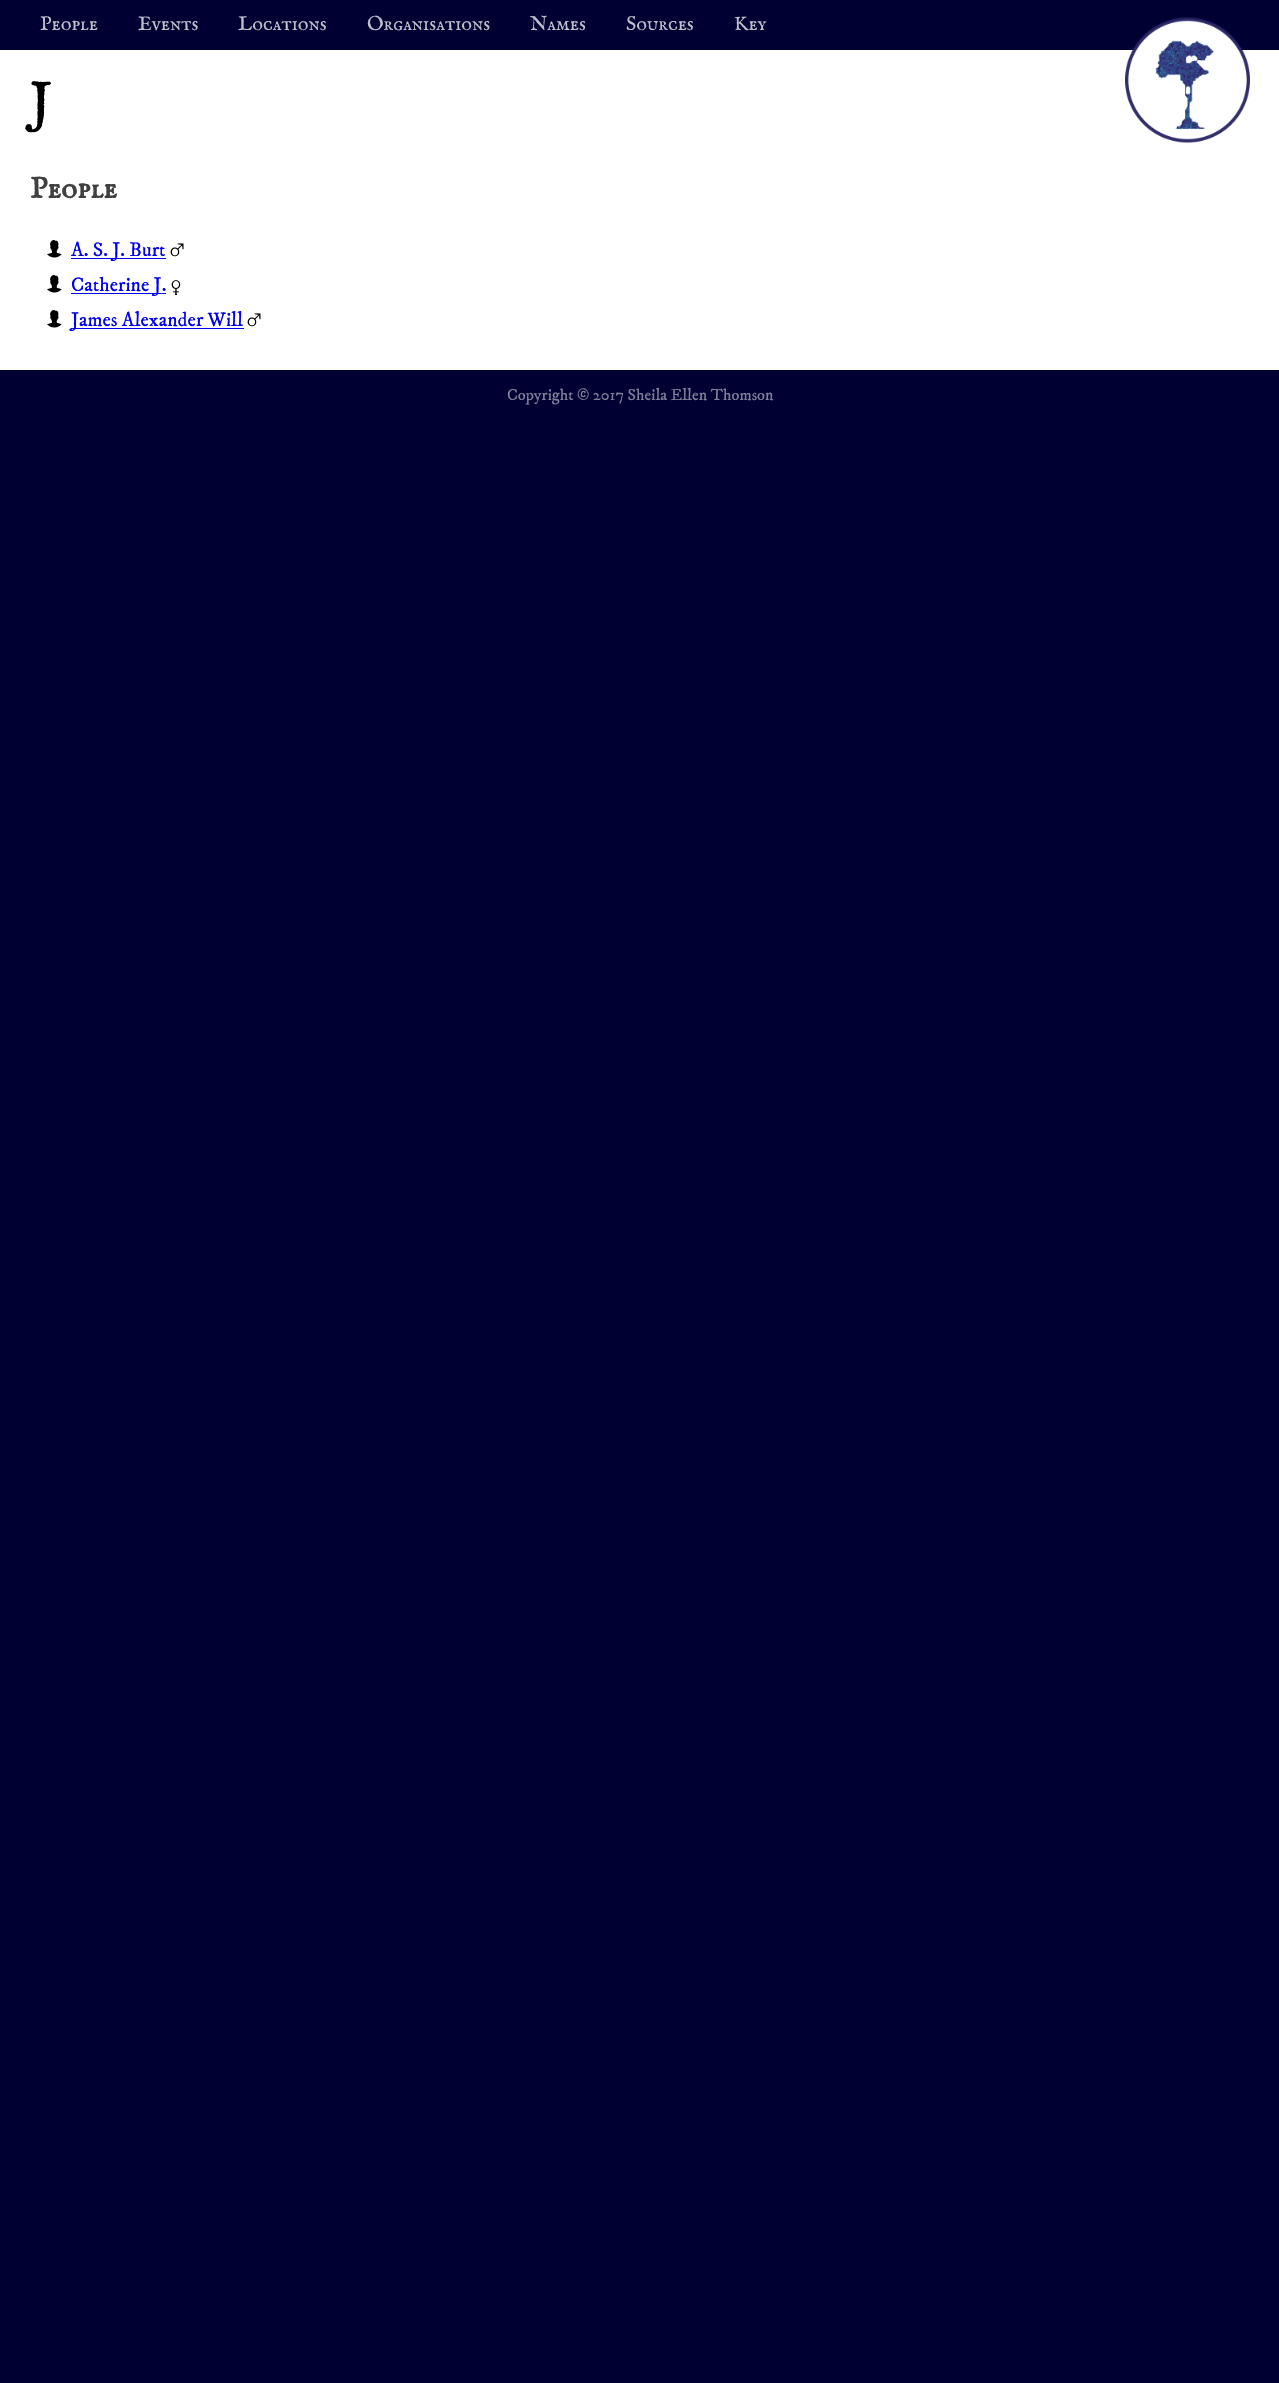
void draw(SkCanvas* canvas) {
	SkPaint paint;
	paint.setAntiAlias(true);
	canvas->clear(0xff000033);
	SkFont f1(fontMgr->matchFamilyStyle("IM FELL English SC", SkFontStyle::Normal()), 20);
	f1.setSubpixel(true);
	paint.setColor(0xffbfbfcc);
	canvas->drawString("People", 40, 30, f1, paint);
	canvas->drawString("Events", 138, 30, f1, paint);
	canvas->drawString("Locations", 238, 30, f1, paint);
	canvas->drawString("Organisations", 367, 30, f1, paint);
	canvas->drawString("Names", 530, 30, f1, paint);
	canvas->drawString("Sources", 626, 30, f1, paint);
	canvas->drawString("Key", 734, 30, f1, paint);
	paint.setColor(0xffffffff);
	canvas->drawRect(SkRect::MakeXYWH(0, 50, 1279, 320), paint);
	canvas->drawImageRect(SkImages::DeferredFromEncodedData(SkData::MakeFromFileName("img1.png")), SkRect::MakeXYWH(1125, 17, 125, 126), SkSamplingOptions());
	SkFont f2(fontMgr->matchFamilyStyle("IM FELL English SC", SkFontStyle::Bold()), 50);
	f2.setSubpixel(true);
	paint.setColor(0xff000000);
	canvas->drawString("J", 30, 118, f2, paint);
	SkFont f3(fontMgr->matchFamilyStyle("IM FELL English SC", SkFontStyle::Bold()), 30);
	f3.setSubpixel(true);
	paint.setColor(0xff404040);
	canvas->drawString("People", 30, 198, f3, paint);
	canvas->drawImageRect(SkImages::DeferredFromEncodedData(SkData::MakeFromFileName("img2.png")), SkRect::MakeXYWH(47, 240, 15, 18), SkSamplingOptions());
	paint.setColor(0xff0000ee);
	canvas->drawRect(SkRect::MakeXYWH(71, 258, 95, 1), paint);
	SkFont f4(fontMgr->matchFamilyStyle("IM FELL DW Pica", SkFontStyle::Normal()), 20);
	f4.setSubpixel(true);
	canvas->drawString("A. S. J. Burt", 71, 256, f4, paint);
	SkFont f5(fontMgr->matchFamilyStyle("FreeSerif", SkFontStyle::Normal()), 20);
	f5.setSubpixel(true);
	paint.setColor(0xff000000);
	canvas->drawString("♂", 170, 256, f5, paint);
	canvas->drawImageRect(SkImages::DeferredFromEncodedData(SkData::MakeFromFileName("img2.png")), SkRect::MakeXYWH(47, 275, 15, 18), SkSamplingOptions());
	paint.setColor(0xff0000ee);
	canvas->drawRect(SkRect::MakeXYWH(71, 293, 95, 1), paint);
	canvas->drawString("Catherine J.", 71, 291, f4, paint);
	paint.setColor(0xff000000);
	canvas->drawString("♀", 171, 291, f5, paint);
	canvas->drawImageRect(SkImages::DeferredFromEncodedData(SkData::MakeFromFileName("img2.png")), SkRect::MakeXYWH(47, 310, 15, 18), SkSamplingOptions());
	paint.setColor(0xff0000ee);
	canvas->drawRect(SkRect::MakeXYWH(71, 328, 173, 1), paint);
	canvas->drawString("James Alexander Will", 71, 326, f4, paint);
	paint.setColor(0xff000000);
	canvas->drawString("♂", 247, 326, f5, paint);
	SkFont f6(fontMgr->matchFamilyStyle("IM FELL DW Pica", SkFontStyle::Normal()), 16.25);
	f6.setSubpixel(true);
	paint.setColor(0xff808099);
	canvas->drawString("Copyright © 2017 Sheila Ellen Thomson", 507, 400, f6, paint);
}
